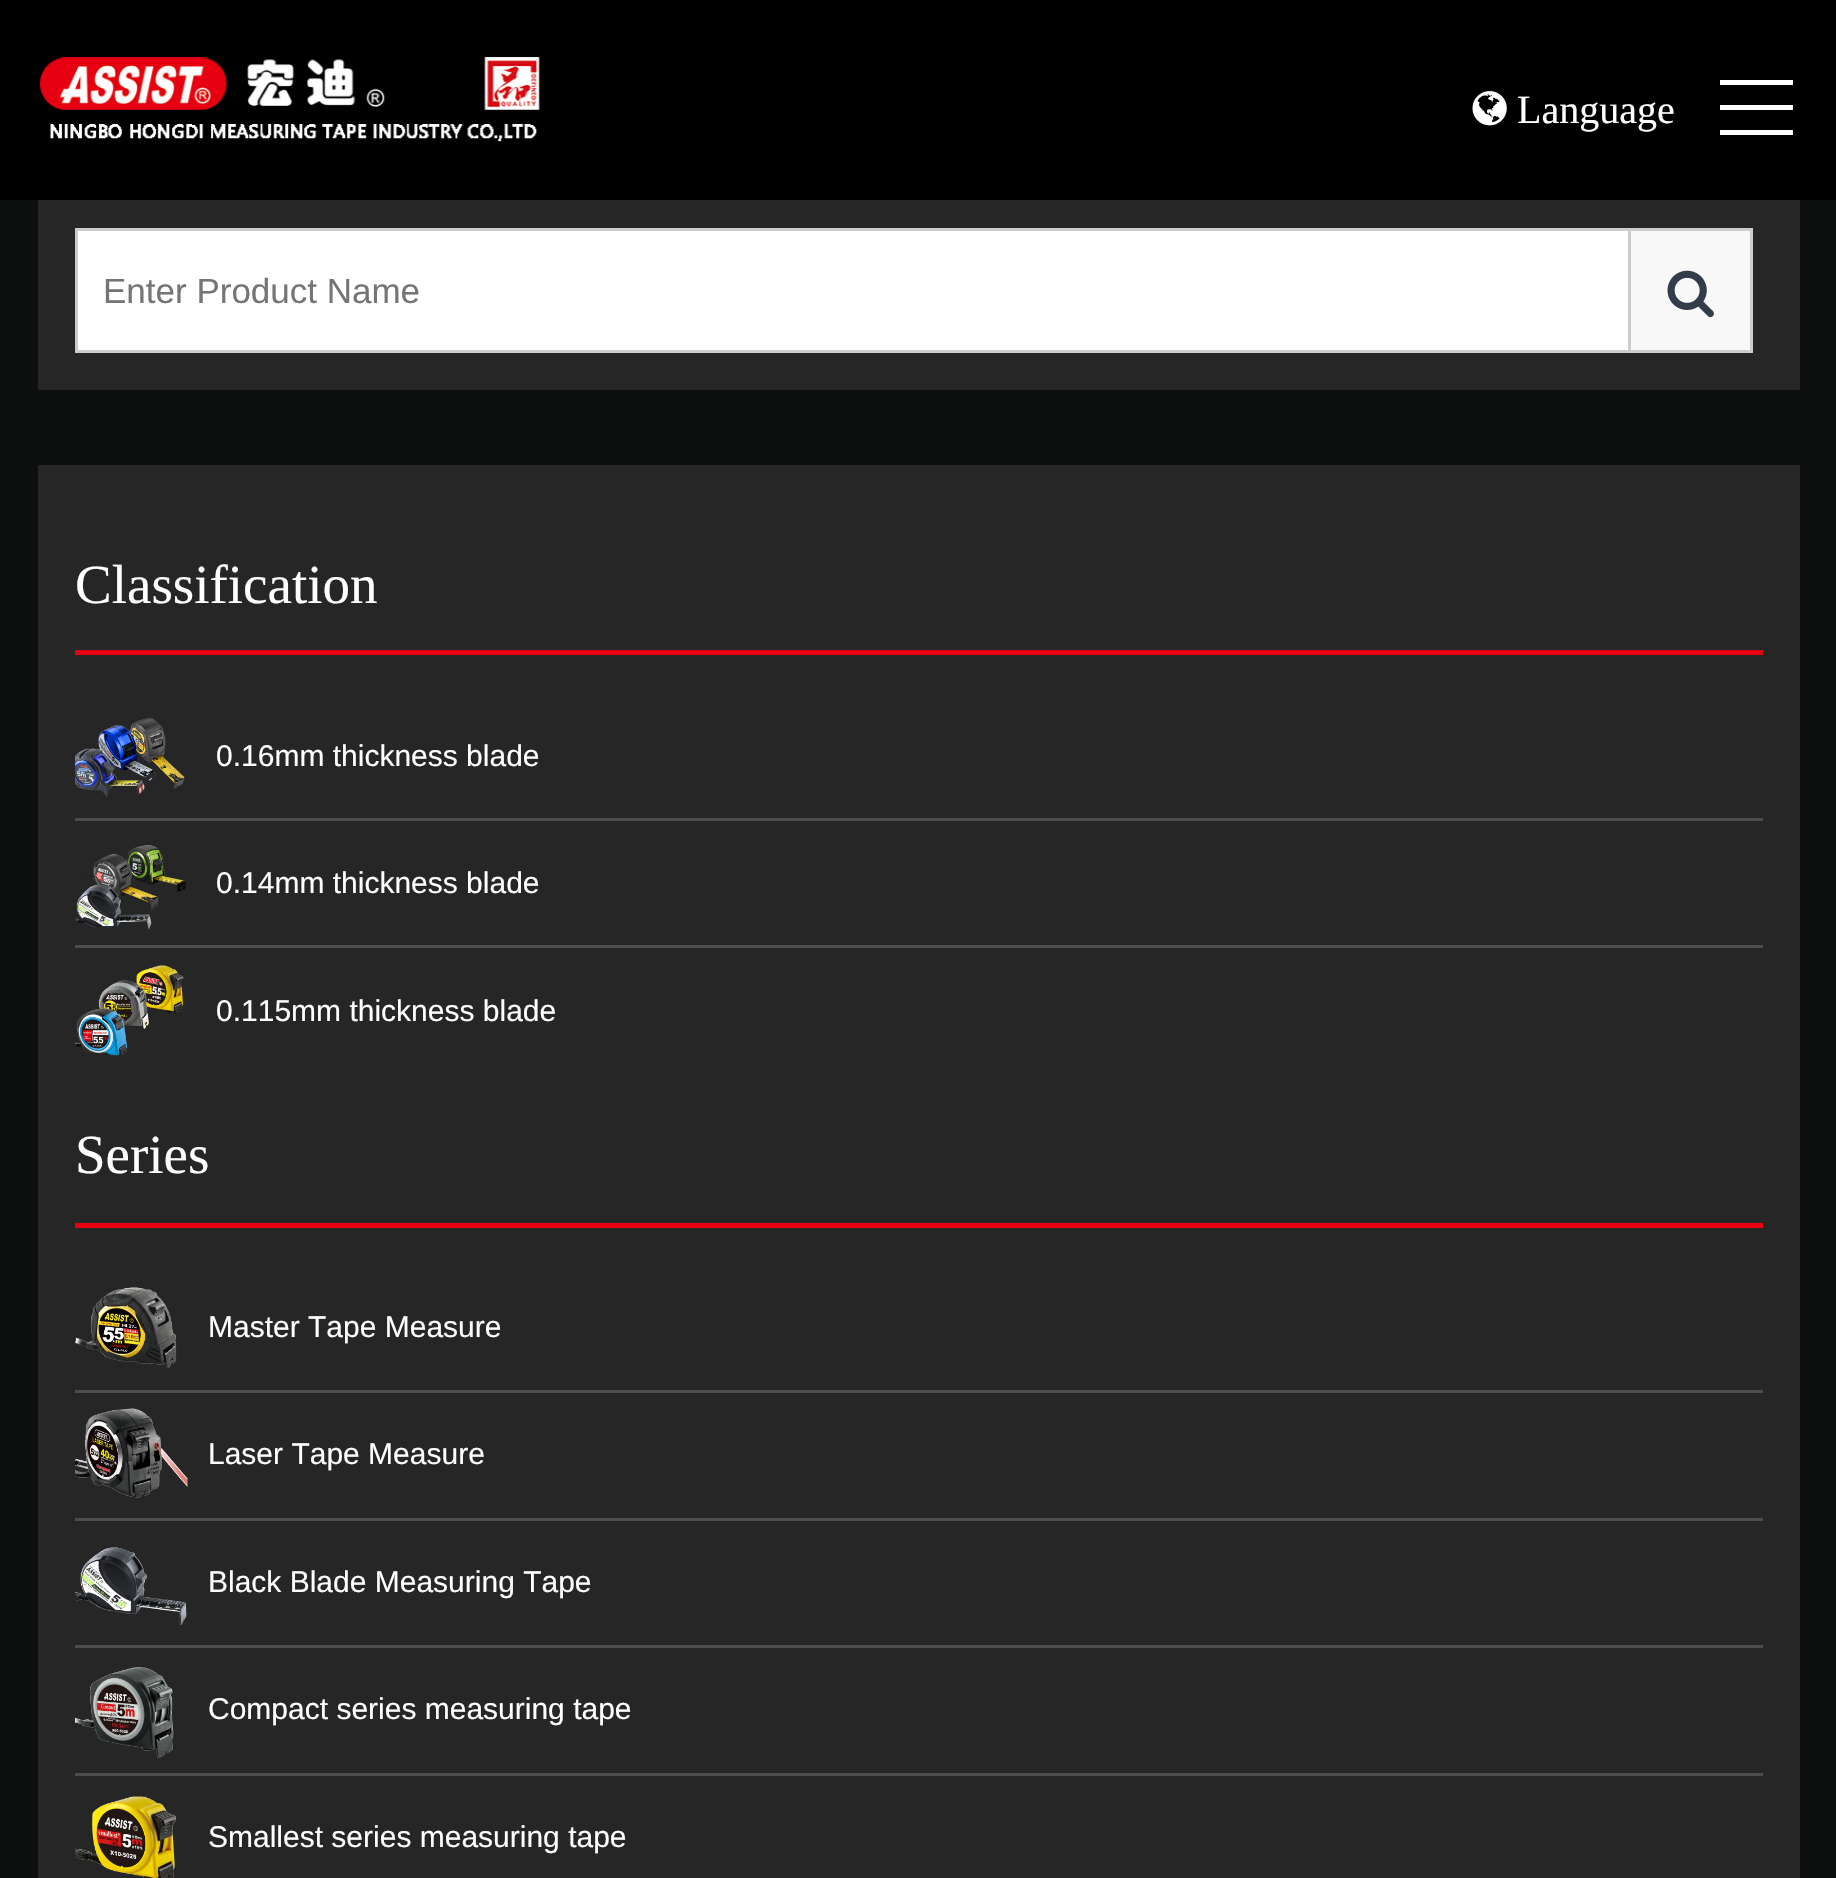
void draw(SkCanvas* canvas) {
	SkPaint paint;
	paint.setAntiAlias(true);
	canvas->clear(0xff0d0e0e);
	paint.setColor(0xff000000);
	canvas->drawRect(SkRect::MakeXYWH(0, 0, 1836, 200), paint);
	canvas->drawImageRect(SkImages::DeferredFromEncodedData(SkData::MakeFromFileName("img1.png")), SkRect::MakeXYWH(40, 57, 500, 85), SkSamplingOptions());
	canvas->drawImageRect(SkImages::DeferredFromEncodedData(SkData::MakeFromFileName("img2.png")), SkRect::MakeXYWH(1472, 91, 35, 35), SkSamplingOptions());
	SkFont f1(fontMgr->matchFamilyStyle("Liberation Serif", SkFontStyle::Normal()), 40);
	f1.setSubpixel(true);
	paint.setColor(0xffffffff);
	canvas->drawString("Language", 1517, 123, f1, paint);
	canvas->drawRect(SkRect::MakeXYWH(1720, 80, 73, 5), paint);
	canvas->drawRect(SkRect::MakeXYWH(1720, 105, 73, 5), paint);
	canvas->drawRect(SkRect::MakeXYWH(1720, 130, 73, 5), paint);
	paint.setColor(0xff262626);
	canvas->drawRect(SkRect::MakeXYWH(38, 200, 1762, 190), paint);
	paint.setColor(0xffffffff);
	canvas->drawRect(SkRect::MakeXYWH(78, 231, 1550, 119), paint);
	paint.setStroke(true);
	paint.setStrokeWidth(3);
	paint.setColor(0xffcccccc);
	canvas->drawRect(SkRect::MakeXYWH(76.5, 229.5, 1560, 122), paint);
	SkFont f2(fontMgr->matchFamilyStyle("Liberation Sans", SkFontStyle::Normal()), 35);
	f2.setSubpixel(true);
	paint.setStroke(false);
	paint.setColor(0xff757575);
	canvas->drawString("Enter Product Name", 103, 303, f2, paint);
	paint.setColor(0xfff8f8f8);
	canvas->drawRect(SkRect::MakeXYWH(1629.5, 229.5, 122, 122), paint);
	paint.setStroke(true);
	paint.setColor(0xffcccccc);
	canvas->drawRect(SkRect::MakeXYWH(1629.5, 229.5, 122, 122), paint);
	canvas->drawImageRect(SkImages::DeferredFromEncodedData(SkData::MakeFromFileName("img3.png")), SkRect::MakeXYWH(1667, 270, 47, 48), SkSamplingOptions());
	paint.setStroke(false);
	paint.setColor(0xff262626);
	canvas->drawRect(SkRect::MakeXYWH(38, 465, 1762, 1413), paint);
	SkFont f3(fontMgr->matchFamilyStyle("Liberation Serif", SkFontStyle::Normal()), 55);
	f3.setSubpixel(true);
	paint.setColor(0xffffffff);
	canvas->drawString("Classification", 75, 603, f3, paint);
	paint.setColor(0xffe60012);
	canvas->drawRect(SkRect::MakeXYWH(75, 650, 1688, 5), paint);
	paint.setColor(0xff4e4d4d);
	canvas->drawRect(SkRect::MakeXYWH(75, 818, 1688, 3), paint);
	canvas->drawImageRect(SkImages::DeferredFromEncodedData(SkData::MakeFromFileName("img4.png")), SkRect::MakeXYWH(75, 717, 110, 80), SkSamplingOptions());
	SkFont f4(fontMgr->matchFamilyStyle("Liberation Sans", SkFontStyle::Normal()), 30);
	f4.setSubpixel(true);
	paint.setColor(0xffffffff);
	canvas->drawString("0.16mm thickness blade", 216, 766, f4, paint);
	paint.setColor(0xff4e4d4d);
	canvas->drawRect(SkRect::MakeXYWH(75, 945, 1688, 3), paint);
	canvas->drawImageRect(SkImages::DeferredFromEncodedData(SkData::MakeFromFileName("img5.png")), SkRect::MakeXYWH(75, 845, 111, 85), SkSamplingOptions());
	paint.setColor(0xffffffff);
	canvas->drawString("0.14mm thickness blade", 216, 893, f4, paint);
	canvas->drawImageRect(SkImages::DeferredFromEncodedData(SkData::MakeFromFileName("img6.png")), SkRect::MakeXYWH(75, 965, 109, 92), SkSamplingOptions());
	canvas->drawString("0.115mm thickness blade", 216, 1021, f4, paint);
	canvas->drawString("Series", 75, 1173, f3, paint);
	paint.setColor(0xffe60012);
	canvas->drawRect(SkRect::MakeXYWH(75, 1223, 1688, 5), paint);
	paint.setColor(0xff4e4d4d);
	canvas->drawRect(SkRect::MakeXYWH(75, 1390, 1688, 3), paint);
	canvas->drawImageRect(SkImages::DeferredFromEncodedData(SkData::MakeFromFileName("img7.png")), SkRect::MakeXYWH(75, 1287, 102, 81), SkSamplingOptions());
	paint.setColor(0xffffffff);
	canvas->drawString("Master Tape Measure", 208, 1337, f4, paint);
	paint.setColor(0xff4e4d4d);
	canvas->drawRect(SkRect::MakeXYWH(75, 1518, 1688, 3), paint);
	canvas->drawImageRect(SkImages::DeferredFromEncodedData(SkData::MakeFromFileName("img8.png")), SkRect::MakeXYWH(75, 1408, 113, 90), SkSamplingOptions());
	paint.setColor(0xffffffff);
	canvas->drawString("Laser Tape Measure", 208, 1464, f4, paint);
	paint.setColor(0xff4e4d4d);
	canvas->drawRect(SkRect::MakeXYWH(75, 1645, 1688, 3), paint);
	canvas->drawImageRect(SkImages::DeferredFromEncodedData(SkData::MakeFromFileName("img9.png")), SkRect::MakeXYWH(75, 1547, 112, 78), SkSamplingOptions());
	paint.setColor(0xffffffff);
	canvas->drawString("Black Blade Measuring Tape", 208, 1592, f4, paint);
	paint.setColor(0xff4e4d4d);
	canvas->drawRect(SkRect::MakeXYWH(75, 1773, 1688, 3), paint);
	canvas->drawImageRect(SkImages::DeferredFromEncodedData(SkData::MakeFromFileName("img10.png")), SkRect::MakeXYWH(75, 1667, 99, 91), SkSamplingOptions());
	paint.setColor(0xffffffff);
	canvas->drawString("Compact series measuring tape", 208, 1719, f4, paint);
	canvas->drawImageRect(SkImages::DeferredFromEncodedData(SkData::MakeFromFileName("img11.png")), SkRect::MakeXYWH(75, 1796, 102, 82), SkSamplingOptions());
	canvas->drawString("Smallest series measuring tape", 208, 1847, f4, paint);
}
